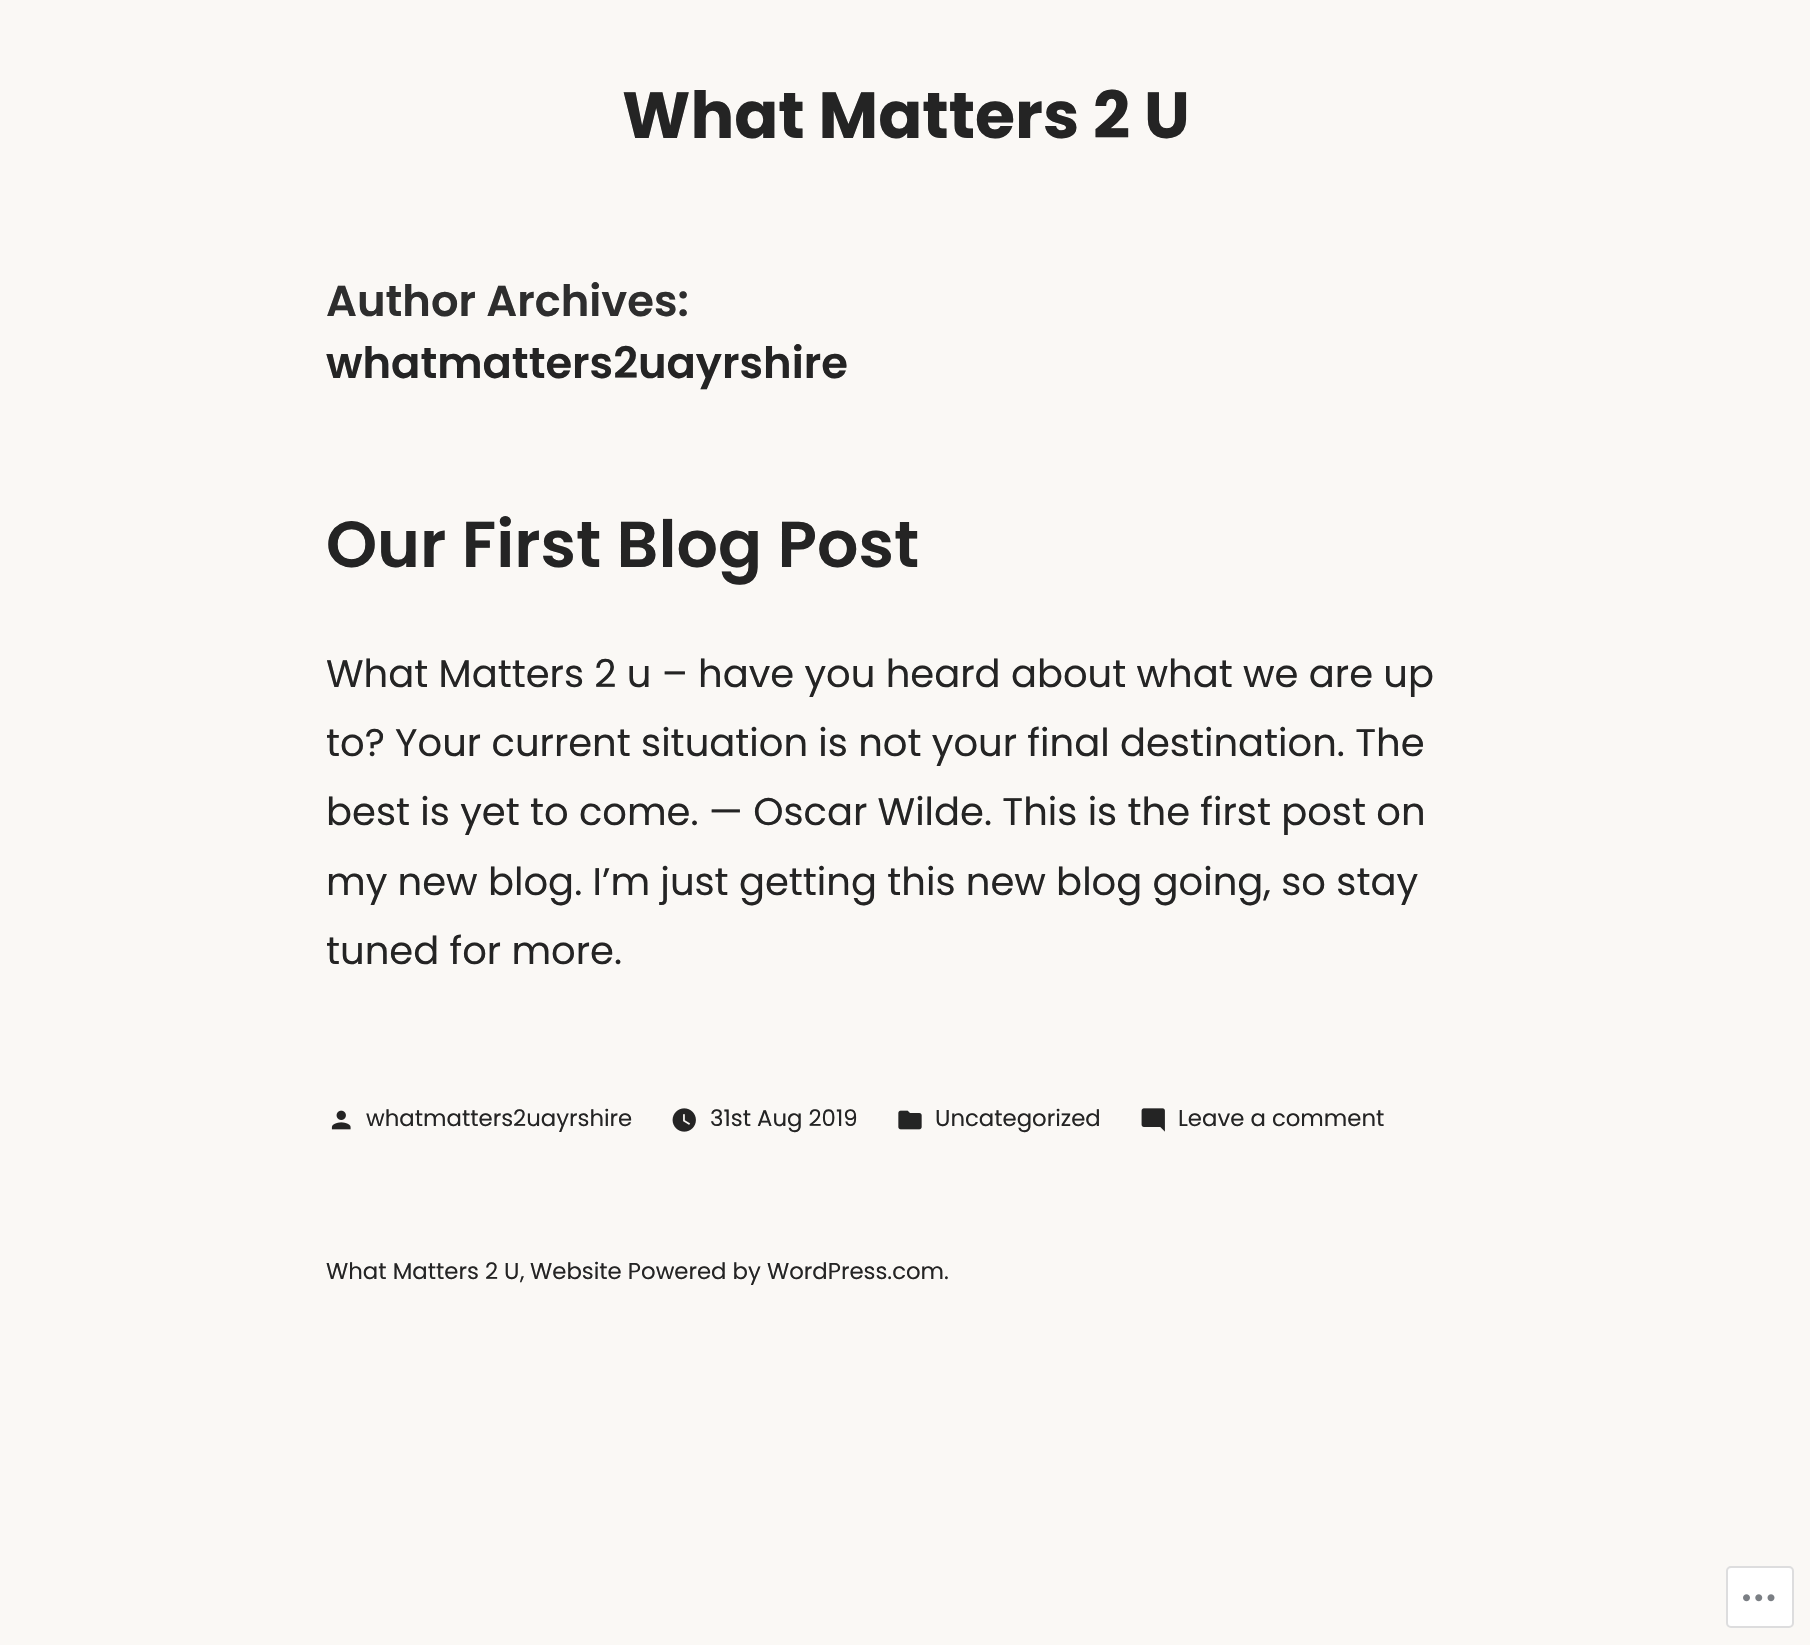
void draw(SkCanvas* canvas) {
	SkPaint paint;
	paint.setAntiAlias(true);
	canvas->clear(0xfffaf8f5);
	SkFont f1(fontMgr->matchFamilyStyle("Poppins", SkFontStyle::Bold()), 65);
	f1.setSubpixel(true);
	paint.setColor(0xff242424);
	canvas->drawString("What Matters 2 U", 622, 138, f1, paint);
	SkFont f2(fontMgr->matchFamilyStyle("Poppins", SkFontStyle(600, SkFontStyle::kNormal_Width, SkFontStyle::kUpright_Slant)), 43.25);
	f2.setSubpixel(true);
	paint.setColor(0xff2e2e2e);
	canvas->drawString("Author Archives:", 326, 316, f2, paint);
	paint.setColor(0xff242424);
	canvas->drawString("whatmatters2uayrshire", 326, 378, f2, paint);
	SkFont f3(fontMgr->matchFamilyStyle("Poppins", SkFontStyle(600, SkFontStyle::kNormal_Width, SkFontStyle::kUpright_Slant)), 65);
	f3.setSubpixel(true);
	canvas->drawString("Our First Blog Post", 326, 567, f3, paint);
	SkFont f4(fontMgr->matchFamilyStyle("Poppins", SkFontStyle::Normal()), 38.5);
	f4.setSubpixel(true);
	canvas->drawString("What Matters 2 u – have you heard about what we are up", 326, 687, f4, paint);
	canvas->drawString("to? Your current situation is not your final destination. The", 326, 756, f4, paint);
	canvas->drawString("best is yet to come. — Oscar Wilde. This is the first post on", 326, 825, f4, paint);
	canvas->drawString("my new blog. I’m just getting this new blog going, so stay", 326, 895, f4, paint);
	canvas->drawString("tuned for more.", 326, 964, f4, paint);
	canvas->drawImageRect(SkImages::DeferredFromEncodedData(SkData::MakeFromFileName("img1.png")), SkRect::MakeXYWH(331, 1110, 20, 20), SkSamplingOptions());
	SkFont f5(fontMgr->matchFamilyStyle("Poppins", SkFontStyle::Normal()), 22.8);
	f5.setSubpixel(true);
	canvas->drawString("whatmatters2uayrshire", 366, 1126, f5, paint);
	canvas->drawImageRect(SkImages::DeferredFromEncodedData(SkData::MakeFromFileName("img2.png")), SkRect::MakeXYWH(672, 1108, 24, 24), SkSamplingOptions());
	canvas->drawString("31st Aug 2019", 710, 1126, f5, paint);
	canvas->drawImageRect(SkImages::DeferredFromEncodedData(SkData::MakeFromFileName("img3.png")), SkRect::MakeXYWH(898, 1110, 24, 20), SkSamplingOptions());
	canvas->drawString("Uncategorized", 935, 1126, f5, paint);
	canvas->drawImageRect(SkImages::DeferredFromEncodedData(SkData::MakeFromFileName("img4.png")), SkRect::MakeXYWH(1141, 1108, 24, 24), SkSamplingOptions());
	canvas->drawString("Leave a comment", 1178, 1126, f5, paint);
	canvas->drawString("What Matters 2 U", 326, 1279, f5, paint);
	canvas->drawString(",", 520, 1279, f5, paint);
	canvas->drawString("Website Powered by WordPress.com", 530, 1279, f5, paint);
	canvas->drawString(".", 944, 1279, f5, paint);
	paint.setColor(0xffffffff);
	canvas->drawRoundRect(SkRect::MakeXYWH(1727, 1567, 66, 60), 4, 4, paint);
	paint.setStroke(true);
	paint.setStrokeWidth(2);
	paint.setColor(0xffddddde);
	canvas->drawRoundRect(SkRect::MakeXYWH(1727, 1567, 66, 60), 4, 4, paint);
	canvas->drawImageRect(SkImages::DeferredFromEncodedData(SkData::MakeFromFileName("img5.png")), SkRect::MakeXYWH(1743, 1594, 32, 8), SkSamplingOptions());
}
